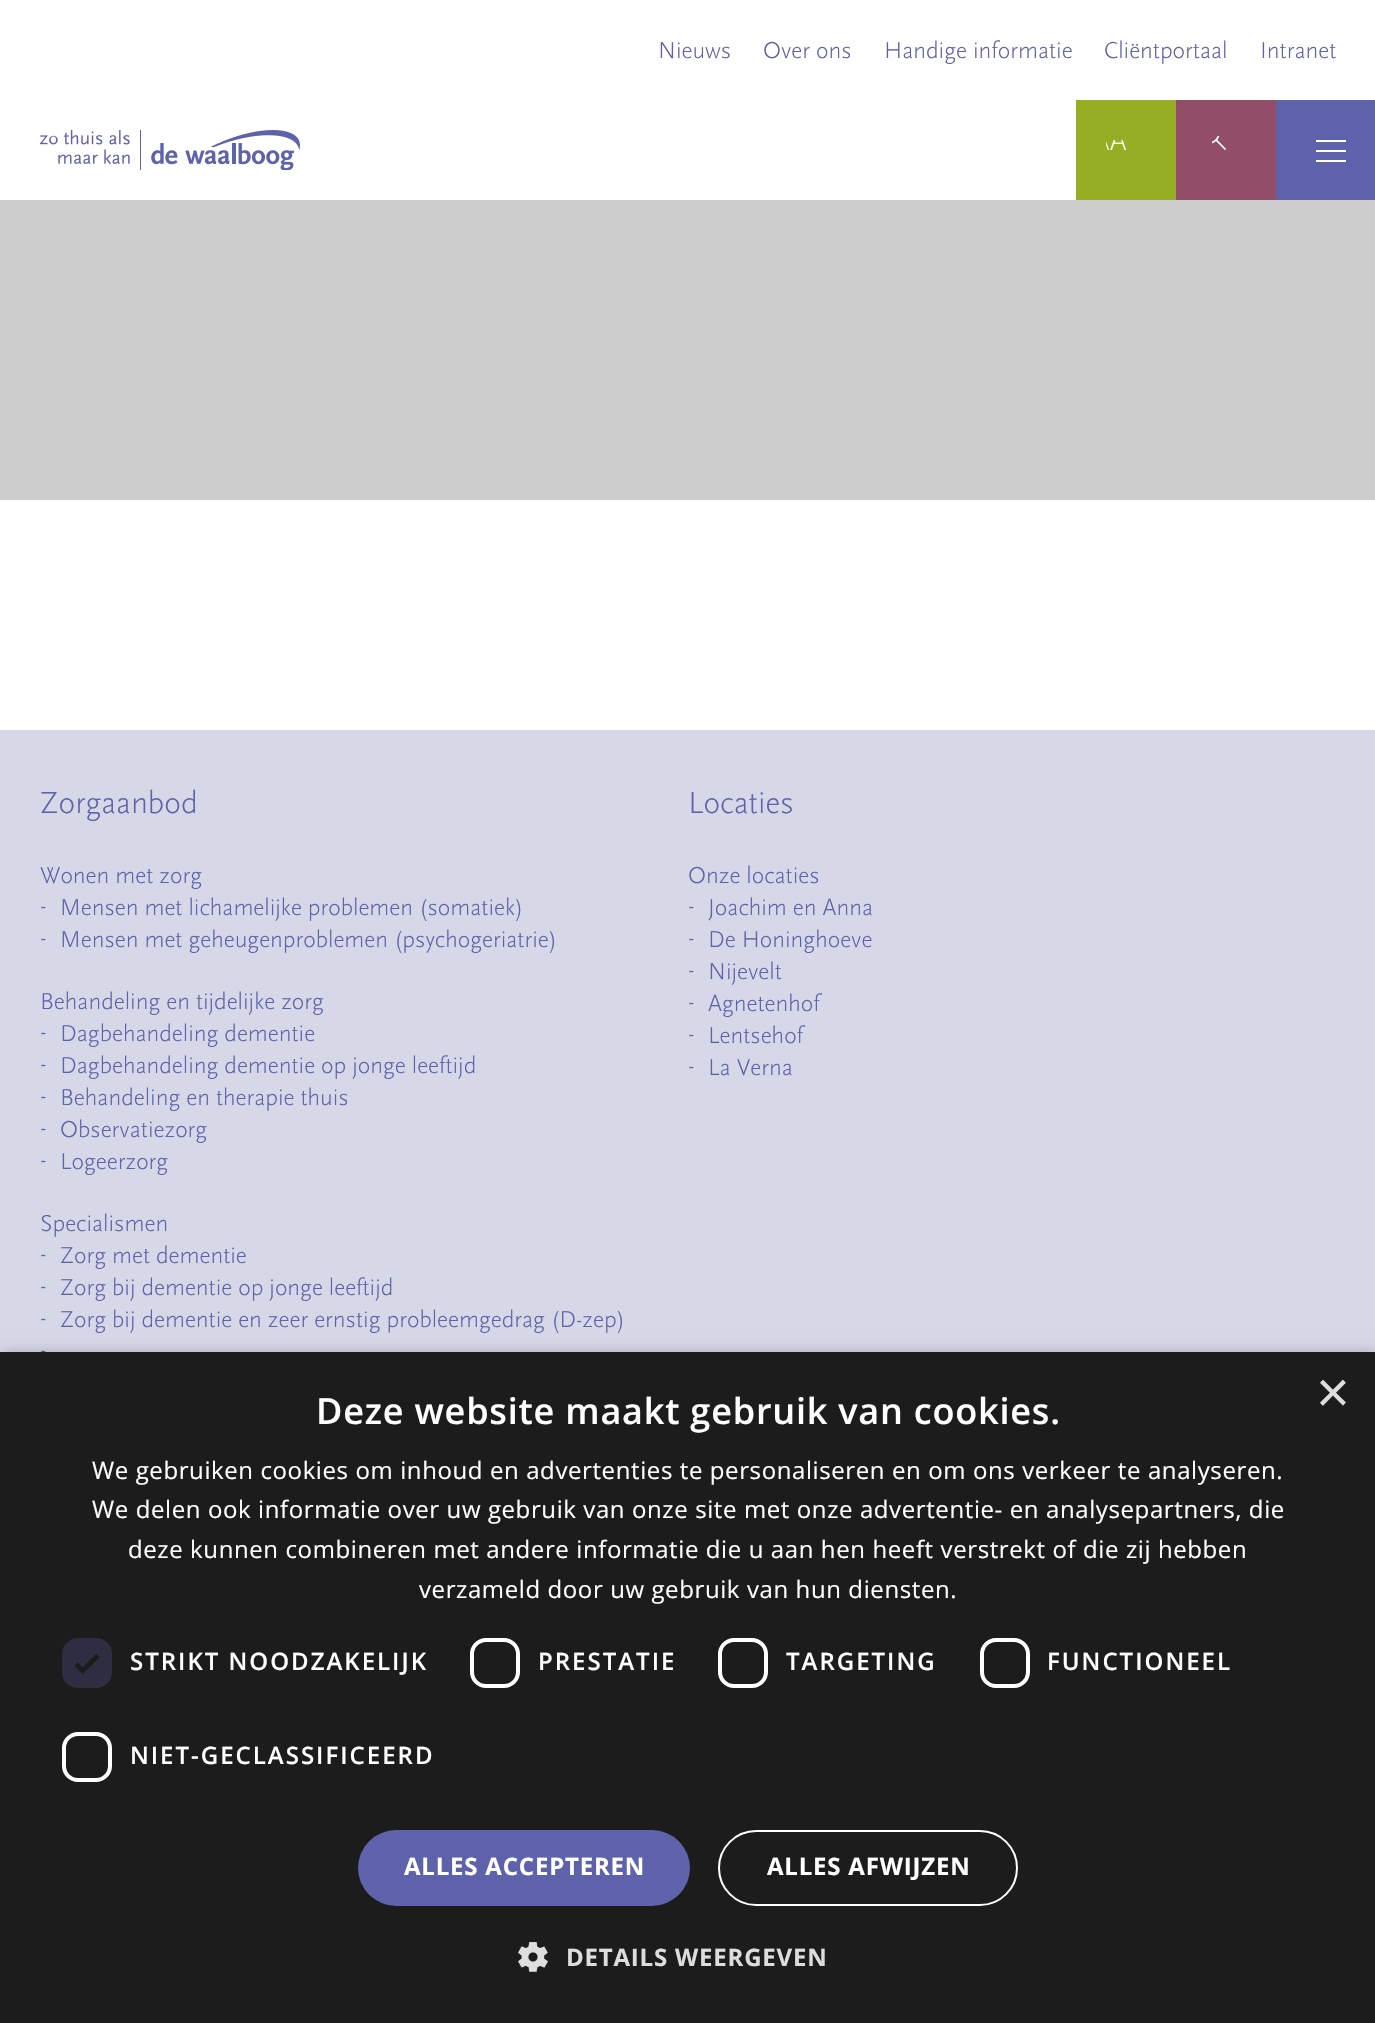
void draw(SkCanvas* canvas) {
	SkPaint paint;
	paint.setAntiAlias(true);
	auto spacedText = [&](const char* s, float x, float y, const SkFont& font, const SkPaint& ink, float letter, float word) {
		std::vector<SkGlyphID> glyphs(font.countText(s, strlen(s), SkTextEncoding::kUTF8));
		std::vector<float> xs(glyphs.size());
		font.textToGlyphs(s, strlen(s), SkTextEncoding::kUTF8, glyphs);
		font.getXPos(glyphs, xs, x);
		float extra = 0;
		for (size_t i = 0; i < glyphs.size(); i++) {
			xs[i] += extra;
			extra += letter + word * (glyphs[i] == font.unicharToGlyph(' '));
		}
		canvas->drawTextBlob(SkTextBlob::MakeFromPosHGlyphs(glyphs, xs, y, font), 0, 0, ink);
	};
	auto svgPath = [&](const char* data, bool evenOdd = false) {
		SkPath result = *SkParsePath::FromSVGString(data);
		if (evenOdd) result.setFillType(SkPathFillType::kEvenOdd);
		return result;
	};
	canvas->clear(0xffffffff);
	SkFont f1(fontMgr->matchFamilyStyle("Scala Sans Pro", SkFontStyle(300, SkFontStyle::kNormal_Width, SkFontStyle::kUpright_Slant)), 24);
	f1.setSubpixel(true);
	paint.setColor(0xff5d62aa);
	canvas->drawString("Nieuws", 658, 58, f1, paint);
	canvas->drawString("Over ons", 763, 58, f1, paint);
	canvas->drawString("Handige informatie", 884, 58, f1, paint);
	canvas->drawString("Cliëntportaal", 1104, 58, f1, paint);
	canvas->drawString("Intranet", 1260, 58, f1, paint);
	paint.setColor(0xff96ae23);
	canvas->drawRect(SkRect::MakeXYWH(1076, 100, 100, 100), paint);
	canvas->drawImageRect(SkImages::DeferredFromEncodedData(SkData::MakeFromFileName("img1.png")), SkRect::MakeXYWH(1106, 140, 21, 10), SkSamplingOptions());
	paint.setColor(0xff924e68);
	canvas->drawRect(SkRect::MakeXYWH(1176, 100, 100, 100), paint);
	canvas->drawImageRect(SkImages::DeferredFromEncodedData(SkData::MakeFromFileName("img2.png")), SkRect::MakeXYWH(1212, 136, 14, 14), SkSamplingOptions());
	paint.setColor(0xff5d62aa);
	canvas->drawRect(SkRect::MakeXYWH(1276, 100, 99, 100), paint);
	paint.setColor(0xffffffff);
	canvas->drawRect(SkRect::MakeXYWH(1316, 150, 30, 2), paint);
	canvas->drawRect(SkRect::MakeXYWH(1316, 140, 30, 2), paint);
	canvas->drawRect(SkRect::MakeXYWH(1316, 160, 30, 2), paint);
	canvas->drawImageRect(SkImages::DeferredFromEncodedData(SkData::MakeFromFileName("img3.png")), SkRect::MakeXYWH(40, 130, 260, 40), SkSamplingOptions());
	paint.setColor(0xffcdcdcd);
	canvas->drawRect(SkRect::MakeXYWH(0, 200, 1375, 300), paint);
	paint.setColor(0xffd6d8e8);
	canvas->drawRect(SkRect::MakeXYWH(0, 730, 1375, 622), paint);
	SkFont f2(fontMgr->matchFamilyStyle("Scala Sans Pro", SkFontStyle(300, SkFontStyle::kNormal_Width, SkFontStyle::kUpright_Slant)), 32);
	f2.setSubpixel(true);
	paint.setColor(0xff5d62aa);
	canvas->drawString("Zorgaanbod", 40, 813, f2, paint);
	canvas->drawString("Wonen met zorg", 40, 883, f1, paint);
	canvas->drawString("-", 40, 913, f1, paint);
	canvas->drawString("Mensen met lichamelijke problemen (somatiek)", 60, 915, f1, paint);
	canvas->drawString("-", 40, 945, f1, paint);
	canvas->drawString("Mensen met geheugenproblemen (psychogeriatrie)", 60, 947, f1, paint);
	canvas->drawString("Behandeling en tijdelijke zorg", 40, 1009, f1, paint);
	canvas->drawString("-", 40, 1039, f1, paint);
	canvas->drawString("Dagbehandeling dementie", 60, 1041, f1, paint);
	canvas->drawString("-", 40, 1071, f1, paint);
	canvas->drawString("Dagbehandeling dementie op jonge leeftijd", 60, 1073, f1, paint);
	canvas->drawString("-", 40, 1103, f1, paint);
	canvas->drawString("Behandeling en therapie thuis", 60, 1105, f1, paint);
	canvas->drawString("-", 40, 1135, f1, paint);
	canvas->drawString("Observatiezorg", 60, 1137, f1, paint);
	canvas->drawString("-", 40, 1167, f1, paint);
	canvas->drawString("Logeerzorg", 60, 1169, f1, paint);
	canvas->drawString("Specialismen", 40, 1231, f1, paint);
	canvas->drawString("-", 40, 1261, f1, paint);
	canvas->drawString("Zorg met dementie", 60, 1263, f1, paint);
	canvas->drawString("-", 40, 1293, f1, paint);
	canvas->drawString("Zorg bij dementie op jonge leeftijd", 60, 1295, f1, paint);
	canvas->drawString("-", 40, 1325, f1, paint);
	canvas->drawString("Zorg bij dementie en zeer ernstig probleemgedrag (D-zep)", 60, 1327, f1, paint);
	canvas->drawString("-", 40, 1357, f1, paint);
	canvas->drawString("Locaties", 688, 813, f2, paint);
	canvas->drawString("Onze locaties", 688, 883, f1, paint);
	canvas->drawString("-", 688, 913, f1, paint);
	canvas->drawString("Joachim en Anna", 708, 915, f1, paint);
	canvas->drawString("-", 688, 945, f1, paint);
	canvas->drawString("De Honinghoeve", 708, 947, f1, paint);
	canvas->drawString("-", 688, 977, f1, paint);
	canvas->drawString("Nijevelt", 708, 979, f1, paint);
	canvas->drawString("-", 688, 1009, f1, paint);
	canvas->drawString("Agnetenhof", 708, 1011, f1, paint);
	canvas->drawString("-", 688, 1041, f1, paint);
	canvas->drawString("Lentsehof", 708, 1043, f1, paint);
	canvas->drawString("-", 688, 1073, f1, paint);
	canvas->drawString("La Verna", 708, 1075, f1, paint);
	paint.setColor(0x59000000);
	paint.setMaskFilter(SkMaskFilter::MakeBlur(kNormal_SkBlurStyle, 8));
	canvas->drawRect(SkRect::MakeXYWH(2, 1356, 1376, 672), paint);
	paint.setMaskFilter(nullptr);
	paint.setColor(0xff1c1c1c);
	canvas->drawRect(SkRect::MakeXYWH(0, 1352, 1375, 671), paint);
	SkFont f3(fontMgr->matchFamilyStyle("Liberation Sans", SkFontStyle::Normal()), 58);
	f3.setSubpixel(true);
	paint.setColor(0xffdddddd);
	canvas->drawString("×", 1316, 1412, f3, paint);
	SkFont f4(fontMgr->matchFamilyStyle("Open Sans", SkFontStyle(600, SkFontStyle::kNormal_Width, SkFontStyle::kUpright_Slant)), 36);
	f4.setSubpixel(true);
	paint.setColor(0xffffffff);
	spacedText("Deze website maakt gebruik van cookies.", 316, 1424, f4, paint, 0.8, 0);
	SkFont f5(fontMgr->matchFamilyStyle("Open Sans", SkFontStyle::Normal()), 24);
	f5.setSubpixel(true);
	spacedText("We gebruiken cookies om inhoud en advertenties te personaliseren en om ons verkeer te analyseren.", 92, 1479, f5, paint, 0.6, 0);
	spacedText("We delen ook informatie over uw gebruik van onze site met onze advertentie- en analysepartners, die", 92, 1518, f5, paint, 0.6, 0);
	spacedText("deze kunnen combineren met andere informatie die u aan hen heeft verstrekt of die zij hebben", 128, 1558, f5, paint, 0.6, 0);
	spacedText("verzameld door uw gebruik van hun diensten.", 419, 1598, f5, paint, 0.6, 0);
	paint.setColor(0xff2d2e41);
	canvas->drawRoundRect(SkRect::MakeXYWH(62, 1638, 50, 50), 16, 16, paint);
	paint.setStroke(true);
	paint.setStrokeWidth(5.2);
	paint.setColor(0xff1c1c1c);
	canvas->drawPath(svgPath("M76 1664L82.5 1670.5L98 1655.5"), paint);
	SkFont f6(fontMgr->matchFamilyStyle("Open Sans", SkFontStyle(600, SkFontStyle::kNormal_Width, SkFontStyle::kUpright_Slant)), 24);
	f6.setSubpixel(true);
	paint.setStroke(false);
	paint.setColor(0xffffffff);
	spacedText("STRIKT NOODZAKELIJK", 130, 1670, f6, paint, 2, 0);
	paint.setStroke(true);
	paint.setStrokeWidth(4);
	canvas->drawRoundRect(SkRect::MakeXYWH(472, 1640, 46, 46), 14, 14, paint);
	paint.setStroke(false);
	spacedText("PRESTATIE", 538, 1670, f6, paint, 2, 0);
	paint.setStroke(true);
	canvas->drawRoundRect(SkRect::MakeXYWH(720, 1640, 46, 46), 14, 14, paint);
	paint.setStroke(false);
	spacedText("TARGETING", 786, 1670, f6, paint, 2, 0);
	paint.setStroke(true);
	canvas->drawRoundRect(SkRect::MakeXYWH(982, 1640, 46, 46), 14, 14, paint);
	paint.setStroke(false);
	spacedText("FUNCTIONEEL", 1047, 1670, f6, paint, 2, 0);
	paint.setStroke(true);
	canvas->drawRoundRect(SkRect::MakeXYWH(64, 1734, 46, 46), 14, 14, paint);
	paint.setStroke(false);
	spacedText("NIET-GECLASSIFICEERD", 130, 1764, f6, paint, 2, 0);
	paint.setColor(0xff5d62aa);
	canvas->drawRoundRect(SkRect::MakeXYWH(358, 1830, 332, 76), 38, 38, paint);
	SkFont f7(fontMgr->matchFamilyStyle("Open Sans", SkFontStyle::Bold()), 24);
	f7.setSubpixel(true);
	paint.setColor(0xffffffff);
	spacedText("ALLES ACCEPTEREN", 404, 1875, f7, paint, 0.8, 0);
	paint.setStroke(true);
	paint.setStrokeWidth(2);
	canvas->drawRoundRect(SkRect::MakeXYWH(719, 1831, 298, 74), 37, 37, paint);
	paint.setStroke(false);
	spacedText("ALLES AFWIJZEN", 767, 1875, f7, paint, 0.8, 0);
	canvas->drawImageRect(SkImages::DeferredFromEncodedData(SkData::MakeFromFileName("img4.png")), SkRect::MakeXYWH(518, 1942, 30, 30), SkSamplingOptions());
	paint.setColor(0xffdddddd);
	spacedText("DETAILS WEERGEVEN", 566, 1966, f7, paint, 0.8, 0);
}
